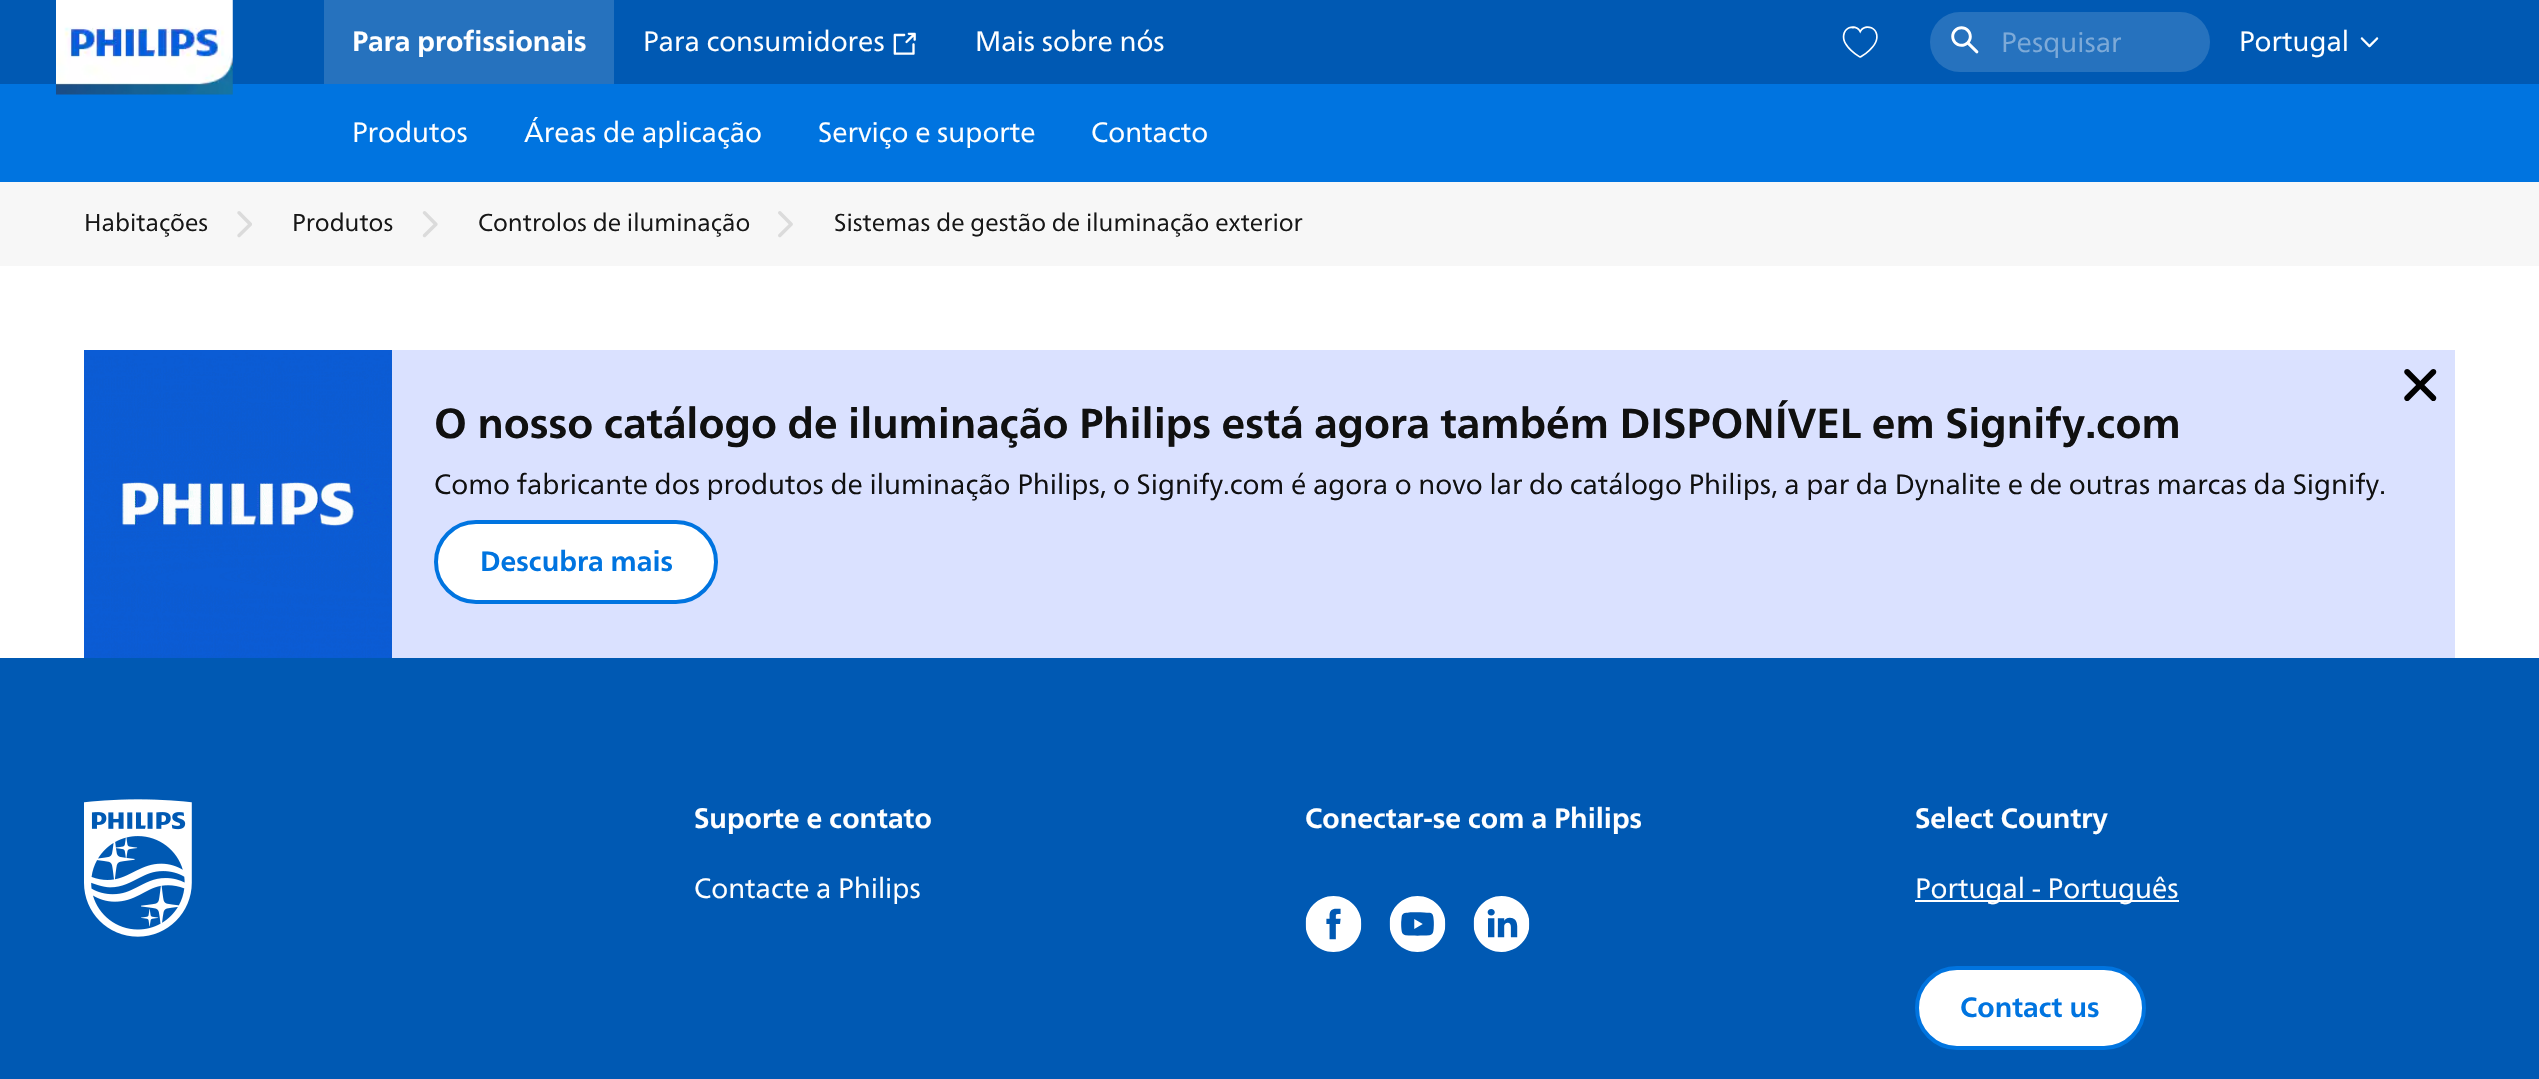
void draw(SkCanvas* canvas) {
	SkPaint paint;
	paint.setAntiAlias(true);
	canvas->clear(0xffffffff);
	paint.setColor(0xff0059b3);
	canvas->drawRect(SkRect::MakeXYWH(0, 0, 2539, 84), paint);
	paint.setColor(0xff0074e0);
	canvas->drawRect(SkRect::MakeXYWH(0, 84, 2539, 98), paint);
	canvas->drawImageRect(SkImages::DeferredFromEncodedData(SkData::MakeFromFileName("img1.png")), SkRect::MakeXYWH(56, 0, 177, 95), SkSamplingOptions());
	paint.setColor(0xff2672be);
	canvas->drawRect(SkRect::MakeXYWH(324, 0, 290, 84), paint);
	SkFont f1(fontMgr->matchFamilyStyle("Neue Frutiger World", SkFontStyle::Bold()), 28);
	f1.setSubpixel(true);
	paint.setColor(0xffffffff);
	canvas->drawString("Para profissionais", 352, 51, f1, paint);
	SkFont f2(fontMgr->matchFamilyStyle("Neue Frutiger World", SkFontStyle::Normal()), 28);
	f2.setSubpixel(true);
	canvas->drawString("Para consumidores", 643, 51, f2, paint);
	canvas->drawImageRect(SkImages::DeferredFromEncodedData(SkData::MakeFromFileName("img2.png")), SkRect::MakeXYWH(893, 32, 23, 23), SkSamplingOptions());
	canvas->drawString("Mais sobre nós", 975, 51, f2, paint);
	canvas->drawImageRect(SkImages::DeferredFromEncodedData(SkData::MakeFromFileName("img3.png")), SkRect::MakeXYWH(1842, 26, 36, 32), SkSamplingOptions());
	paint.setColor(0xff2672be);
	canvas->drawRoundRect(SkRect::MakeXYWH(1930, 12, 280, 60), 30, 30, paint);
	canvas->drawImageRect(SkImages::DeferredFromEncodedData(SkData::MakeFromFileName("img4.png")), SkRect::MakeXYWH(1951, 26, 28, 28), SkSamplingOptions());
	paint.setColor(0xff7daad8);
	canvas->drawString("Pesquisar", 2001, 52, f2, paint);
	paint.setColor(0xffffffff);
	canvas->drawString("Portugal", 2239, 51, f2, paint);
	canvas->drawImageRect(SkImages::DeferredFromEncodedData(SkData::MakeFromFileName("img5.png")), SkRect::MakeXYWH(2360, 37, 19, 11), SkSamplingOptions());
	canvas->drawString("Produtos", 352, 142, f2, paint);
	canvas->drawString("Áreas de aplicação", 524, 142, f2, paint);
	canvas->drawString("Serviço e suporte", 818, 142, f2, paint);
	canvas->drawString("Contacto", 1091, 142, f2, paint);
	paint.setColor(0xfff7f7f7);
	canvas->drawRect(SkRect::MakeXYWH(0, 182, 2539, 84), paint);
	SkFont f3(fontMgr->matchFamilyStyle("Neue Frutiger World", SkFontStyle::Normal()), 24.5);
	f3.setSubpixel(true);
	paint.setColor(0xff171717);
	canvas->drawString("Habitações", 84, 231, f3, paint);
	canvas->drawImageRect(SkImages::DeferredFromEncodedData(SkData::MakeFromFileName("img6.png")), SkRect::MakeXYWH(237, 211, 15, 27), SkSamplingOptions());
	canvas->drawString("Produtos", 292, 231, f3, paint);
	canvas->drawImageRect(SkImages::DeferredFromEncodedData(SkData::MakeFromFileName("img7.png")), SkRect::MakeXYWH(422, 211, 16, 27), SkSamplingOptions());
	canvas->drawString("Controlos de iluminação", 478, 231, f3, paint);
	canvas->drawImageRect(SkImages::DeferredFromEncodedData(SkData::MakeFromFileName("img8.png")), SkRect::MakeXYWH(778, 211, 15, 27), SkSamplingOptions());
	canvas->drawString("Sistemas de gestão de iluminação exterior", 834, 231, f3, paint);
	paint.setColor(0xffdae1ff);
	canvas->drawRect(SkRect::MakeXYWH(392, 350, 2063, 308), paint);
	canvas->drawImageRect(SkImages::DeferredFromEncodedData(SkData::MakeFromFileName("img9.png")), SkRect::MakeXYWH(84, 350, 308, 308), SkSamplingOptions());
	canvas->drawImageRect(SkImages::DeferredFromEncodedData(SkData::MakeFromFileName("img10.png")), SkRect::MakeXYWH(2404, 369, 33, 32), SkSamplingOptions());
	SkFont f4(fontMgr->matchFamilyStyle("Neue Frutiger World", SkFontStyle::Bold()), 42);
	f4.setSubpixel(true);
	paint.setColor(0xff101010);
	canvas->drawString("O nosso catálogo de iluminação Philips está agora também DISPONÍVEL em Signify.com", 434, 438, f4, paint);
	canvas->drawString("Como fabricante dos produtos de iluminação Philips, o Signify.com é agora o novo lar do catálogo Philips, a par da Dynalite e de outras marcas da Signify.", 434, 494, f2, paint);
	paint.setColor(0xffffffff);
	canvas->drawRoundRect(SkRect::MakeXYWH(436, 522, 280, 80), 40, 40, paint);
	paint.setStroke(true);
	paint.setStrokeWidth(4);
	paint.setColor(0xff0074e0);
	canvas->drawRoundRect(SkRect::MakeXYWH(436, 522, 280, 80), 40, 40, paint);
	paint.setStroke(false);
	canvas->drawString("Descubra mais", 480, 571, f1, paint);
	paint.setColor(0xff0059b3);
	canvas->drawRect(SkRect::MakeXYWH(0, 658, 2539, 421), paint);
	canvas->drawImageRect(SkImages::DeferredFromEncodedData(SkData::MakeFromFileName("img11.png")), SkRect::MakeXYWH(84, 799, 108, 138), SkSamplingOptions());
	paint.setColor(0xffffffff);
	canvas->drawString("Suporte e contato", 694, 828, f1, paint);
	canvas->drawString("Contacte a Philips", 694, 898, f2, paint);
	canvas->drawString("Conectar-se com a Philips", 1305, 828, f1, paint);
	canvas->drawImageRect(SkImages::DeferredFromEncodedData(SkData::MakeFromFileName("img12.png")), SkRect::MakeXYWH(1305, 896, 57, 56), SkSamplingOptions());
	canvas->drawImageRect(SkImages::DeferredFromEncodedData(SkData::MakeFromFileName("img13.png")), SkRect::MakeXYWH(1389, 896, 57, 56), SkSamplingOptions());
	canvas->drawImageRect(SkImages::DeferredFromEncodedData(SkData::MakeFromFileName("img14.png")), SkRect::MakeXYWH(1473, 896, 57, 56), SkSamplingOptions());
	canvas->drawString("Select Country", 1915, 828, f1, paint);
	canvas->drawRect(SkRect::MakeXYWH(1915, 900, 264, 2), paint);
	canvas->drawString("Portugal - Português", 1915, 898, f2, paint);
	canvas->drawRoundRect(SkRect::MakeXYWH(1917, 968, 227, 80), 40, 40, paint);
	paint.setStroke(true);
	paint.setColor(0xff0074e0);
	canvas->drawRoundRect(SkRect::MakeXYWH(1917, 968, 227, 80), 40, 40, paint);
	paint.setStroke(false);
	canvas->drawString("Contact us", 1960, 1017, f1, paint);
}
